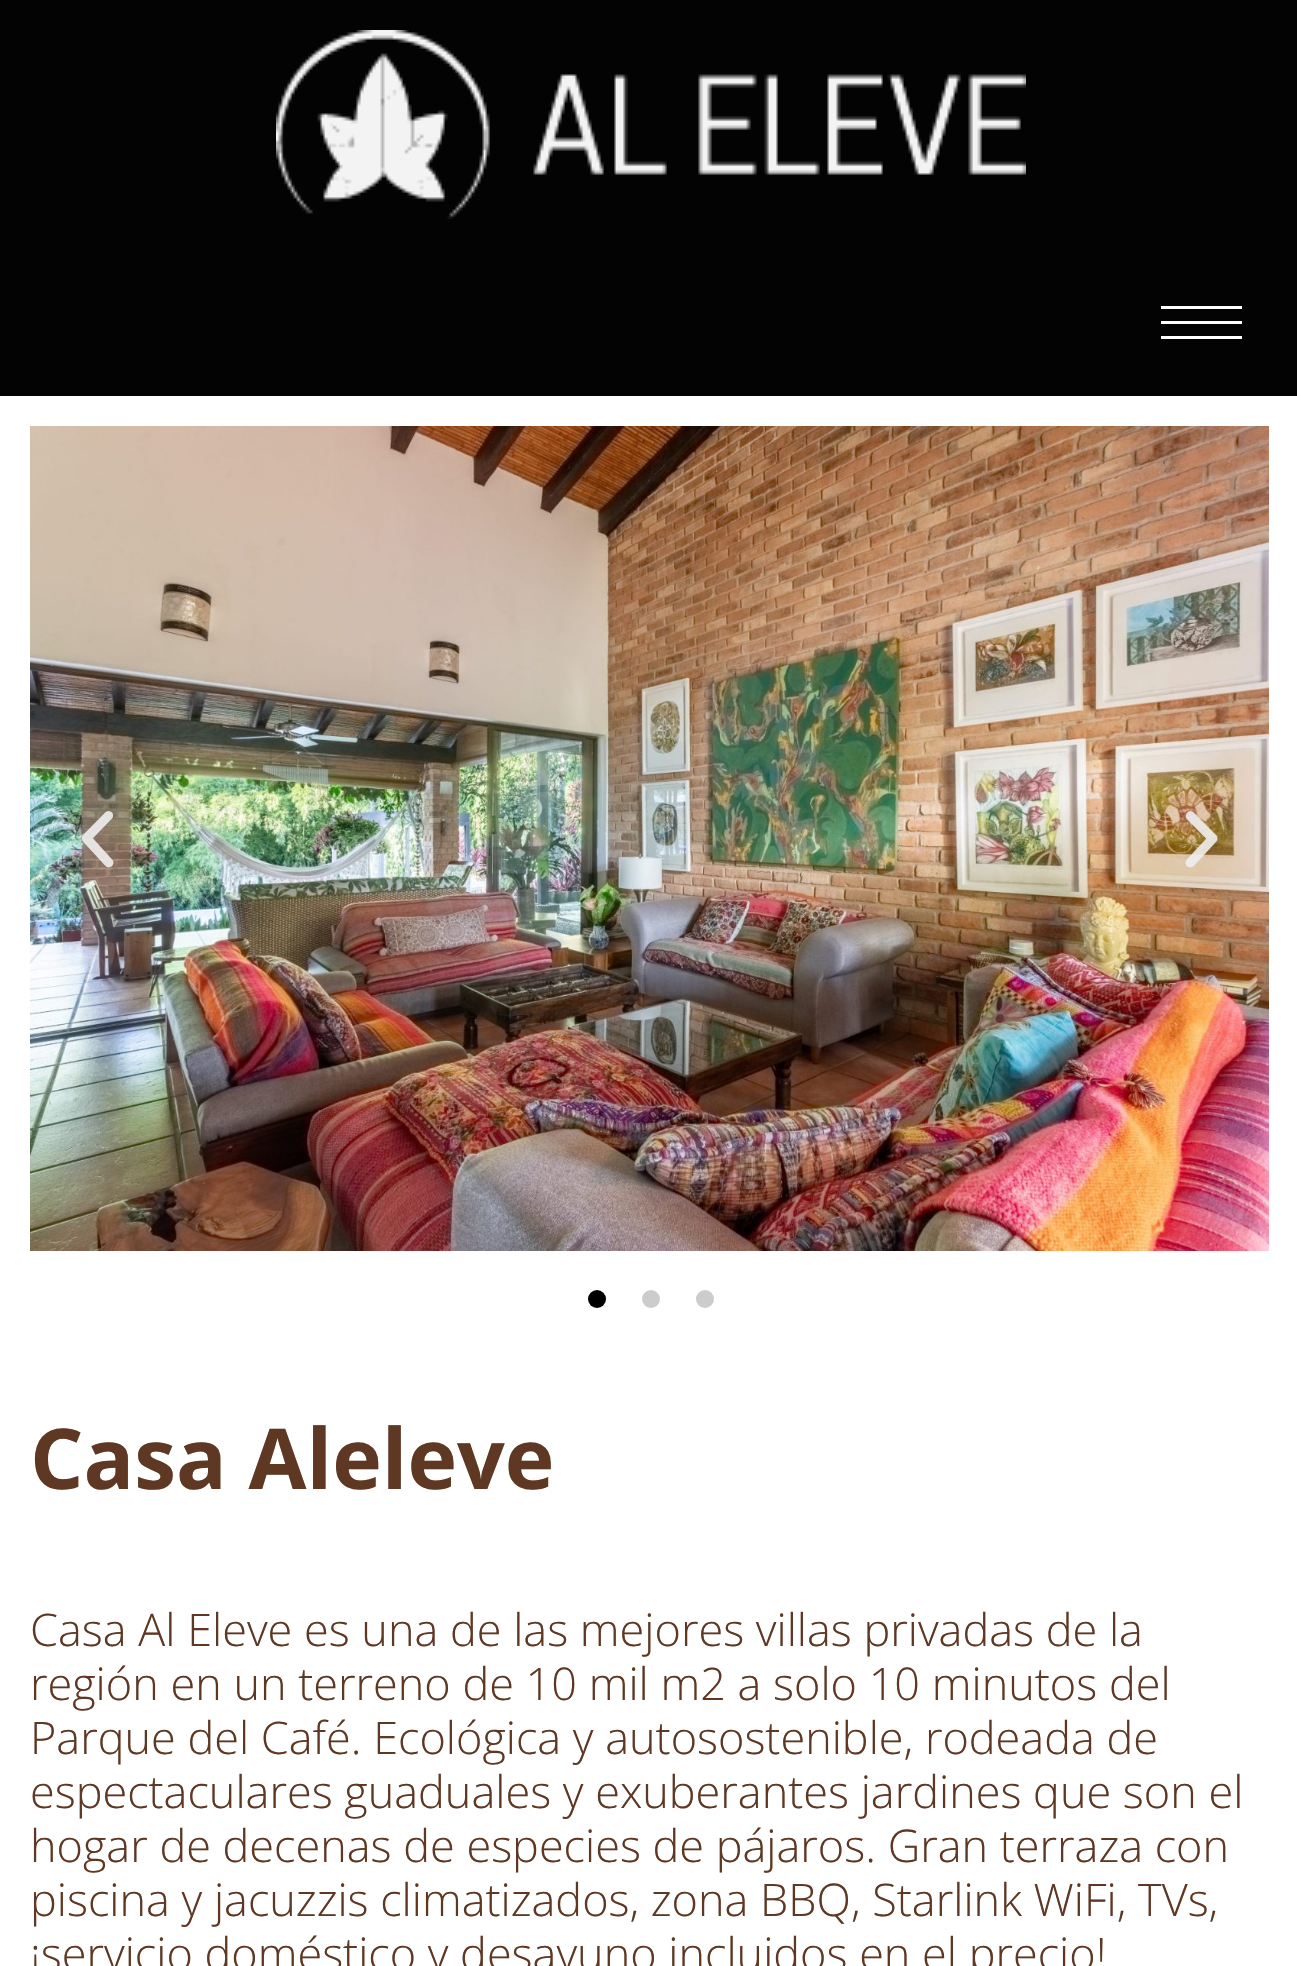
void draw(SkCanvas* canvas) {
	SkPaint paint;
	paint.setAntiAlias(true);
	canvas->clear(0xffffffff);
	paint.setColor(0xff030303);
	canvas->drawRect(SkRect::MakeXYWH(0, 0, 1297, 396), paint);
	canvas->drawImageRect(SkImages::DeferredFromEncodedData(SkData::MakeFromFileName("img1.png")), SkRect::MakeXYWH(276, 30, 750, 189), SkSamplingOptions());
	paint.setColor(0xffffffff);
	canvas->drawRect(SkRect::MakeXYWH(1161, 306, 81, 3), paint);
	canvas->drawRect(SkRect::MakeXYWH(1161, 321, 81, 3), paint);
	canvas->drawRect(SkRect::MakeXYWH(1161, 336, 81, 3), paint);
	canvas->drawImageRect(SkImages::DeferredFromEncodedData(SkData::MakeFromFileName("img2.png")), SkRect::MakeXYWH(30, 426, 1239, 825), SkSamplingOptions());
	canvas->drawImageRect(SkImages::DeferredFromEncodedData(SkData::MakeFromFileName("img3.png")), SkRect::MakeXYWH(81, 811, 33, 57), SkSamplingOptions());
	canvas->drawImageRect(SkImages::DeferredFromEncodedData(SkData::MakeFromFileName("img4.png")), SkRect::MakeXYWH(1185, 811, 33, 57), SkSamplingOptions());
	paint.setColor(0xff000000);
	canvas->drawCircle(597, 1299, 9, paint);
	paint.setColor(0xffcccccc);
	canvas->drawCircle(651, 1299, 9, paint);
	canvas->drawCircle(705, 1299, 9, paint);
	SkFont f1(fontMgr->matchFamilyStyle("Open Sans", SkFontStyle::Bold()), 84);
	f1.setSubpixel(true);
	paint.setColor(0xff5f3824);
	canvas->drawString("Casa Aleleve", 30, 1489, f1, paint);
	SkFont f2(fontMgr->matchFamilyStyle("Open Sans", SkFontStyle(300, SkFontStyle::kNormal_Width, SkFontStyle::kUpright_Slant)), 45);
	f2.setSubpixel(true);
	canvas->drawString("Casa Al Eleve es una de las mejores villas privadas de la", 30, 1646, f2, paint);
	canvas->drawString("región en un terreno de 10 mil m2 a solo 10 minutos del", 30, 1700, f2, paint);
	canvas->drawString("Parque del Café. Ecológica y autosostenible, rodeada de", 30, 1754, f2, paint);
	canvas->drawString("espectaculares guaduales y exuberantes jardines que son el", 30, 1808, f2, paint);
	canvas->drawString("hogar de decenas de especies de pájaros. Gran terraza con", 30, 1862, f2, paint);
	canvas->drawString("piscina y jacuzzis climatizados, zona BBQ, Starlink WiFi, TVs,", 30, 1916, f2, paint);
	canvas->drawString("¡servicio doméstico y desayuno incluidos en el precio!", 30, 1970, f2, paint);
}
